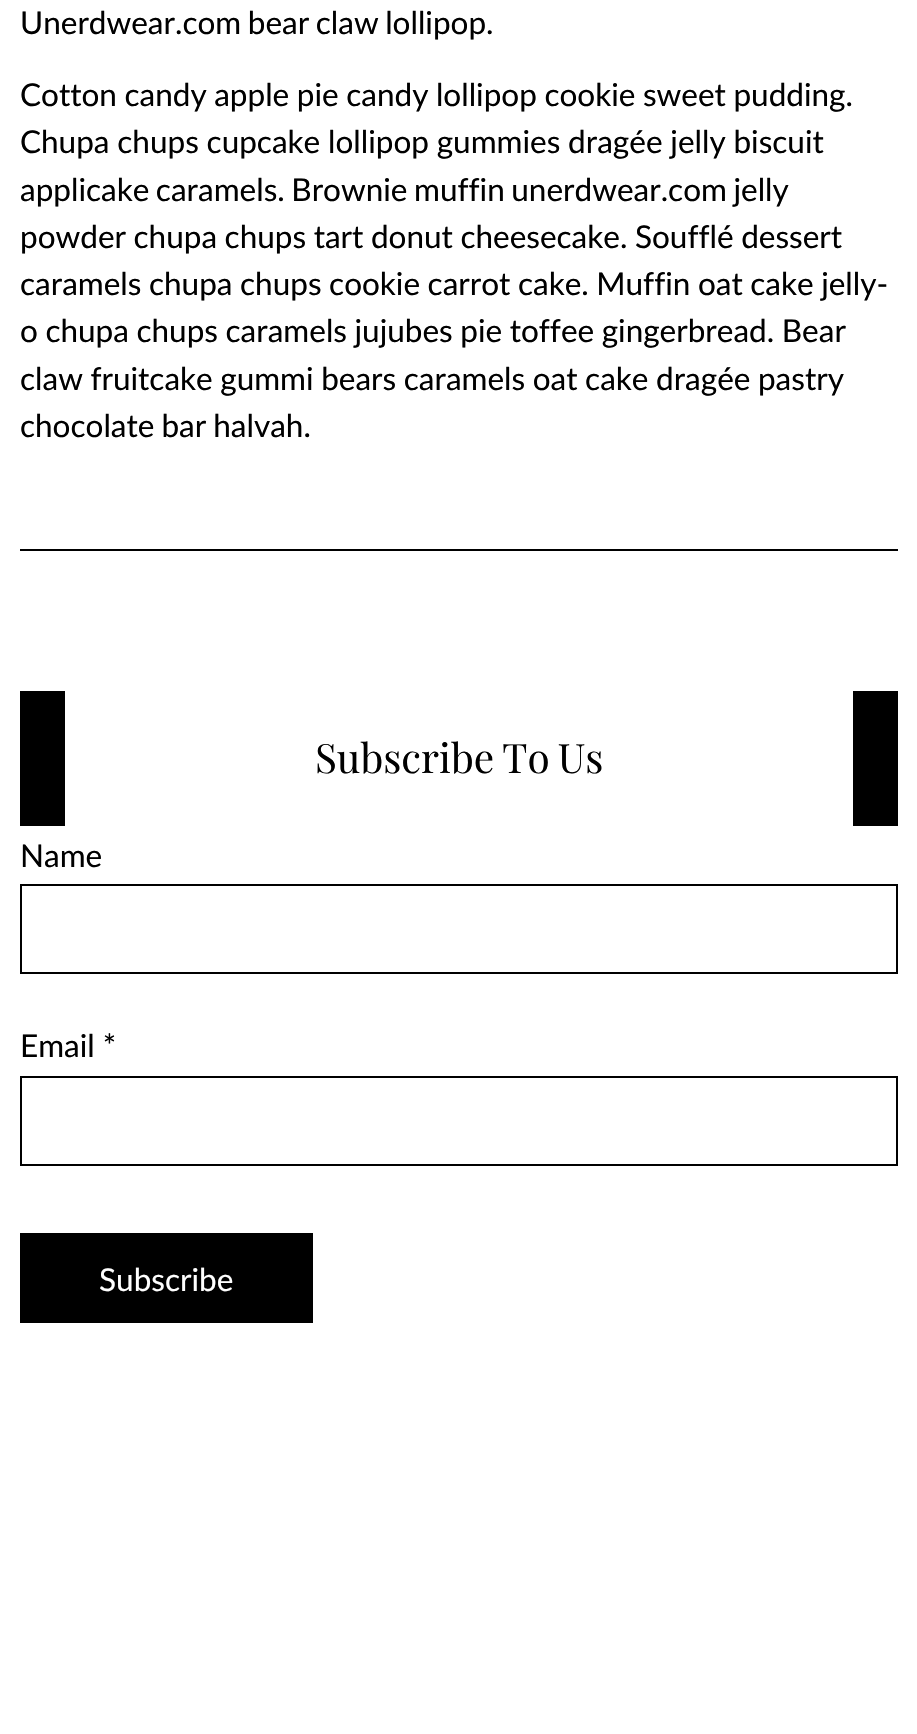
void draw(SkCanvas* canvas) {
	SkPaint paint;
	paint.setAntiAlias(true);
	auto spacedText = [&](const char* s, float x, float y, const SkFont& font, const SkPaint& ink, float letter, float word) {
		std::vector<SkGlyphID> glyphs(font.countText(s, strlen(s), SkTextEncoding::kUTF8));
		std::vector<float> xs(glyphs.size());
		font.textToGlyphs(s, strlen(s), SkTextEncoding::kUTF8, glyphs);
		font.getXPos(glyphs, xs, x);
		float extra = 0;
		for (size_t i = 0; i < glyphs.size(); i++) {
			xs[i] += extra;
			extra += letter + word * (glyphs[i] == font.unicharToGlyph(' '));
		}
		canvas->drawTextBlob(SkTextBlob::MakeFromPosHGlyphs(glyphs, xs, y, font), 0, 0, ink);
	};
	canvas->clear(0xffffffff);
	SkFont f1(fontMgr->matchFamilyStyle("Lato", SkFontStyle::Normal()), 31.5);
	f1.setSubpixel(true);
	paint.setColor(0xff000000);
	spacedText("Unerdwear.com bear claw lollipop.", 20, 34, f1, paint, 0, -1.5);
	spacedText("Cotton candy apple pie candy lollipop cookie sweet pudding.", 20, 106, f1, paint, 0, -0.5);
	spacedText("Chupa chups cupcake lollipop gummies dragée jelly biscuit", 20, 153, f1, paint, 0, -0.25);
	spacedText("applicake caramels. Brownie muffin unerdwear.com jelly", 20, 201, f1, paint, 0, -1.5);
	spacedText("powder chupa chups tart donut cheesecake. Soufflé dessert", 20, 248, f1, paint, 0, -0.5);
	spacedText("caramels chupa chups cookie carrot cake. Muffin oat cake jelly-", 20, 295, f1, paint, 0, -0.5);
	spacedText("o chupa chups caramels jujubes pie toffee gingerbread. Bear", 20, 342, f1, paint, 0, -0.5);
	spacedText("claw fruitcake gummi bears caramels oat cake dragée pastry", 20, 390, f1, paint, 0, -0.5);
	spacedText("chocolate bar halvah.", 20, 437, f1, paint, 0, -1);
	canvas->drawRect(SkRect::MakeXYWH(20, 549, 878, 2), paint);
	canvas->drawRect(SkRect::MakeXYWH(853, 691, 45, 135), paint);
	canvas->drawRect(SkRect::MakeXYWH(20, 691, 45, 135), paint);
	SkFont f2(fontMgr->matchFamilyStyle("Playfair Display", SkFontStyle::Normal()), 40.5);
	f2.setSubpixel(true);
	spacedText("Subscribe To Us", 315, 773, f2, paint, 0, -2);
	canvas->drawString("Name", 20, 867, f1, paint);
	paint.setStroke(true);
	paint.setStrokeWidth(2);
	canvas->drawRect(SkRect::MakeXYWH(21, 885, 876, 88), paint);
	paint.setStroke(false);
	canvas->drawString("Email *", 20, 1057, f1, paint);
	paint.setStroke(true);
	canvas->drawRect(SkRect::MakeXYWH(21, 1077, 876, 88), paint);
	paint.setStroke(false);
	canvas->drawRect(SkRect::MakeXYWH(20, 1233, 293, 90), paint);
	paint.setColor(0xffffffff);
	canvas->drawString("Subscribe", 99, 1291, f1, paint);
}
